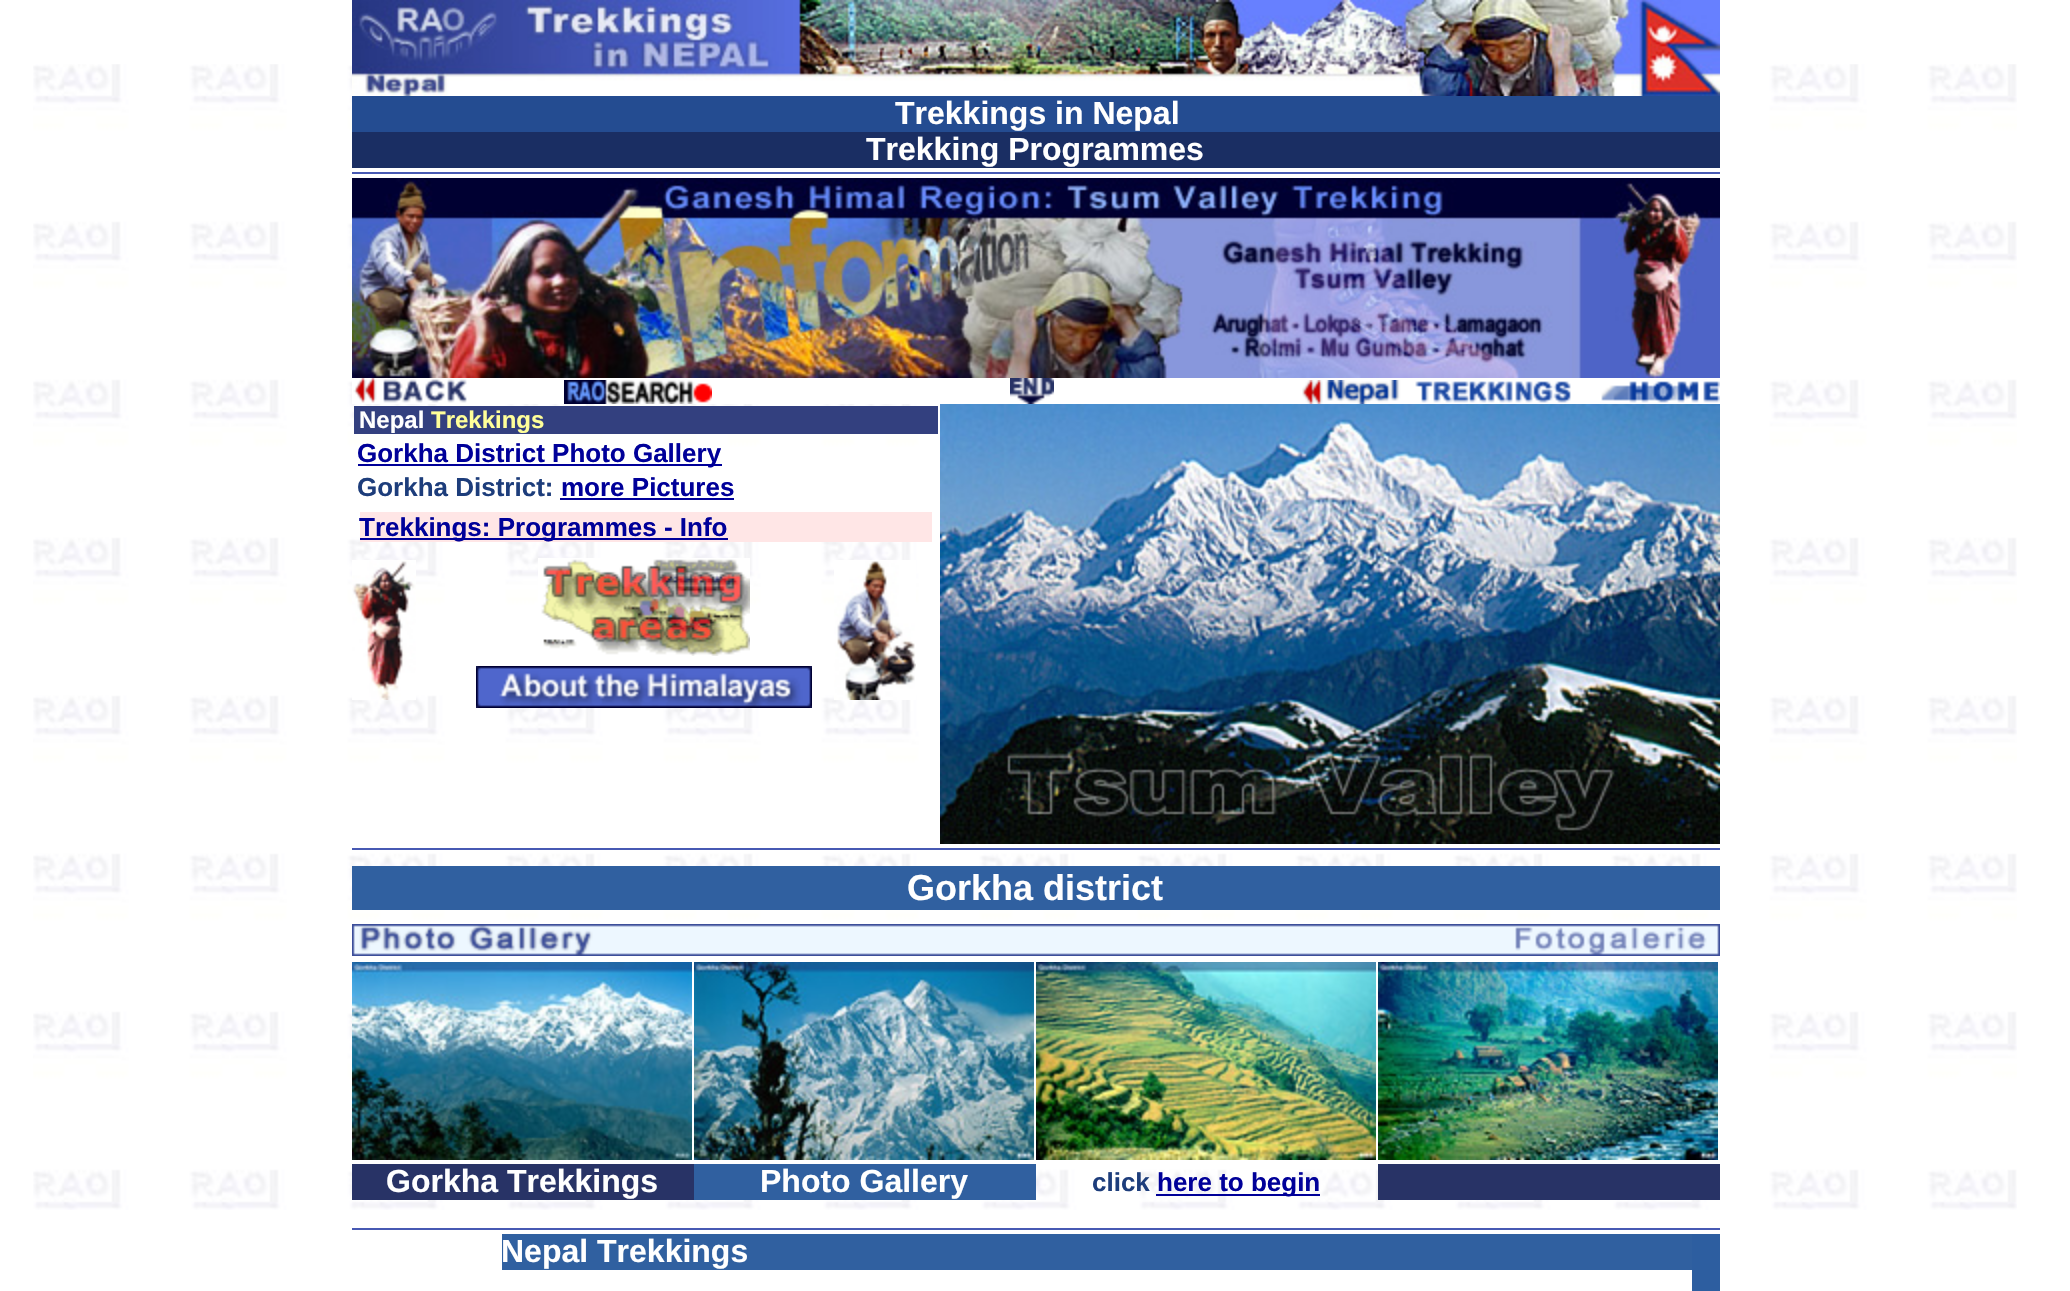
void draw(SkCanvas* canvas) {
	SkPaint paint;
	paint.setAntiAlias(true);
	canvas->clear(0xffffffff);
	canvas->drawImageRect(SkImages::DeferredFromEncodedData(SkData::MakeFromFileName("img1.png")), SkRect::MakeXYWH(33, 64, 1984, 1146), SkSamplingOptions());
	canvas->drawImageRect(SkImages::DeferredFromEncodedData(SkData::MakeFromFileName("img2.png")), SkRect::MakeXYWH(352, 0, 1368, 96), SkSamplingOptions());
	paint.setColor(0xff244c91);
	canvas->drawRect(SkRect::MakeXYWH(352, 96, 1368, 36), paint);
	SkFont f1(fontMgr->matchFamilyStyle("Liberation Sans", SkFontStyle::Bold()), 32);
	f1.setSubpixel(true);
	paint.setColor(0xffffffff);
	canvas->drawString("Trekkings in Nepal", 895, 124, f1, paint);
	paint.setColor(0xff1a2e63);
	canvas->drawRect(SkRect::MakeXYWH(352, 132, 1368, 36), paint);
	paint.setColor(0xffffffff);
	canvas->drawString("Trekking Programmes", 866, 160, f1, paint);
	paint.setColor(0xff4759b3);
	canvas->drawRect(SkRect::MakeXYWH(352, 172, 1368, 2), paint);
	canvas->drawImageRect(SkImages::DeferredFromEncodedData(SkData::MakeFromFileName("img3.png")), SkRect::MakeXYWH(352, 178, 1368, 200), SkSamplingOptions());
	paint.setColor(0xffffffff);
	canvas->drawRect(SkRect::MakeXYWH(352, 379, 1349, 25), paint);
	canvas->drawImageRect(SkImages::DeferredFromEncodedData(SkData::MakeFromFileName("img4.png")), SkRect::MakeXYWH(353, 378, 114, 25), SkSamplingOptions());
	canvas->drawImageRect(SkImages::DeferredFromEncodedData(SkData::MakeFromFileName("img5.png")), SkRect::MakeXYWH(564, 380, 148, 24), SkSamplingOptions());
	canvas->drawImageRect(SkImages::DeferredFromEncodedData(SkData::MakeFromFileName("img6.png")), SkRect::MakeXYWH(1010, 378, 44, 26), SkSamplingOptions());
	canvas->drawImageRect(SkImages::DeferredFromEncodedData(SkData::MakeFromFileName("img7.png")), SkRect::MakeXYWH(1302, 380, 418, 24), SkSamplingOptions());
	paint.setColor(0xff33407f);
	canvas->drawRect(SkRect::MakeXYWH(354, 406, 584, 28), paint);
	SkFont f2(fontMgr->matchFamilyStyle("Liberation Sans", SkFontStyle::Bold()), 24);
	f2.setSubpixel(true);
	paint.setColor(0xffffffff);
	canvas->drawString("Nepal", 359, 428, f2, paint);
	paint.setColor(0xffffff99);
	canvas->drawString("Trekkings", 431, 428, f2, paint);
	paint.setColor(0xff000099);
	canvas->drawRect(SkRect::MakeXYWH(358, 464, 364, 2), paint);
	SkFont f3(fontMgr->matchFamilyStyle("Liberation Sans", SkFontStyle::Bold()), 26);
	f3.setSubpixel(true);
	canvas->drawString("Gorkha District Photo Gallery", 357, 462, f3, paint);
	paint.setColor(0xff1d3d7b);
	canvas->drawString("Gorkha District:", 357, 496, f3, paint);
	paint.setColor(0xff000099);
	canvas->drawString("more Pictures", 561, 496, f3, paint);
	canvas->drawRect(SkRect::MakeXYWH(560, 498, 174, 2), paint);
	paint.setColor(0xffffe6e6);
	canvas->drawRect(SkRect::MakeXYWH(360, 512, 572, 30), paint);
	paint.setColor(0xff000099);
	canvas->drawRect(SkRect::MakeXYWH(360, 538, 368, 2), paint);
	canvas->drawString("Trekkings: Programmes - Info", 359, 536, f3, paint);
	canvas->drawImageRect(SkImages::DeferredFromEncodedData(SkData::MakeFromFileName("img8.png")), SkRect::MakeXYWH(352, 560, 64, 140), SkSamplingOptions());
	canvas->drawImageRect(SkImages::DeferredFromEncodedData(SkData::MakeFromFileName("img9.png")), SkRect::MakeXYWH(538, 558, 212, 98), SkSamplingOptions());
	canvas->drawImageRect(SkImages::DeferredFromEncodedData(SkData::MakeFromFileName("img10.png")), SkRect::MakeXYWH(476, 666, 336, 42), SkSamplingOptions());
	canvas->drawImageRect(SkImages::DeferredFromEncodedData(SkData::MakeFromFileName("img11.png")), SkRect::MakeXYWH(834, 560, 82, 140), SkSamplingOptions());
	canvas->drawImageRect(SkImages::DeferredFromEncodedData(SkData::MakeFromFileName("img12.png")), SkRect::MakeXYWH(940, 404, 780, 440), SkSamplingOptions());
	paint.setColor(0xff4759b3);
	canvas->drawRect(SkRect::MakeXYWH(352, 848, 1368, 2), paint);
	paint.setColor(0xff3060a0);
	canvas->drawRect(SkRect::MakeXYWH(352, 866, 1368, 44), paint);
	SkFont f4(fontMgr->matchFamilyStyle("Liberation Sans", SkFontStyle::Bold()), 36);
	f4.setSubpixel(true);
	paint.setColor(0xffffffff);
	canvas->drawString("Gorkha district", 907, 900, f4, paint);
	canvas->drawImageRect(SkImages::DeferredFromEncodedData(SkData::MakeFromFileName("img13.png")), SkRect::MakeXYWH(352, 924, 1368, 32), SkSamplingOptions());
	canvas->drawImageRect(SkImages::DeferredFromEncodedData(SkData::MakeFromFileName("img14.png")), SkRect::MakeXYWH(352, 962, 340, 198), SkSamplingOptions());
	canvas->drawImageRect(SkImages::DeferredFromEncodedData(SkData::MakeFromFileName("img15.png")), SkRect::MakeXYWH(694, 962, 340, 198), SkSamplingOptions());
	canvas->drawImageRect(SkImages::DeferredFromEncodedData(SkData::MakeFromFileName("img16.png")), SkRect::MakeXYWH(1036, 962, 340, 198), SkSamplingOptions());
	canvas->drawImageRect(SkImages::DeferredFromEncodedData(SkData::MakeFromFileName("img17.png")), SkRect::MakeXYWH(1378, 962, 340, 198), SkSamplingOptions());
	paint.setColor(0xff283366);
	canvas->drawRect(SkRect::MakeXYWH(352, 1164, 342, 36), paint);
	paint.setColor(0xffffffff);
	canvas->drawString("Gorkha Trekkings", 386, 1192, f1, paint);
	paint.setColor(0xff3060a0);
	canvas->drawRect(SkRect::MakeXYWH(694, 1164, 342, 36), paint);
	paint.setColor(0xffffffff);
	canvas->drawString("Photo Gallery", 760, 1192, f1, paint);
	paint.setColor(0xff1d3d7b);
	canvas->drawString("click", 1092, 1191, f3, paint);
	paint.setColor(0xff000099);
	canvas->drawRect(SkRect::MakeXYWH(1156, 1194, 164, 2), paint);
	canvas->drawString("here to begin", 1157, 1191, f3, paint);
	paint.setColor(0xff283366);
	canvas->drawRect(SkRect::MakeXYWH(1378, 1164, 342, 36), paint);
	paint.setColor(0xff4759b3);
	canvas->drawRect(SkRect::MakeXYWH(352, 1228, 1368, 2), paint);
	paint.setColor(0xff3060a0);
	canvas->drawRect(SkRect::MakeXYWH(502, 1234, 1190, 36), paint);
	paint.setColor(0xffffffff);
	canvas->drawString("Nepal Trekkings", 501, 1262, f1, paint);
	paint.setColor(0xff2d5ea0);
	canvas->drawRect(SkRect::MakeXYWH(1692, 1234, 28, 57), paint);
}
